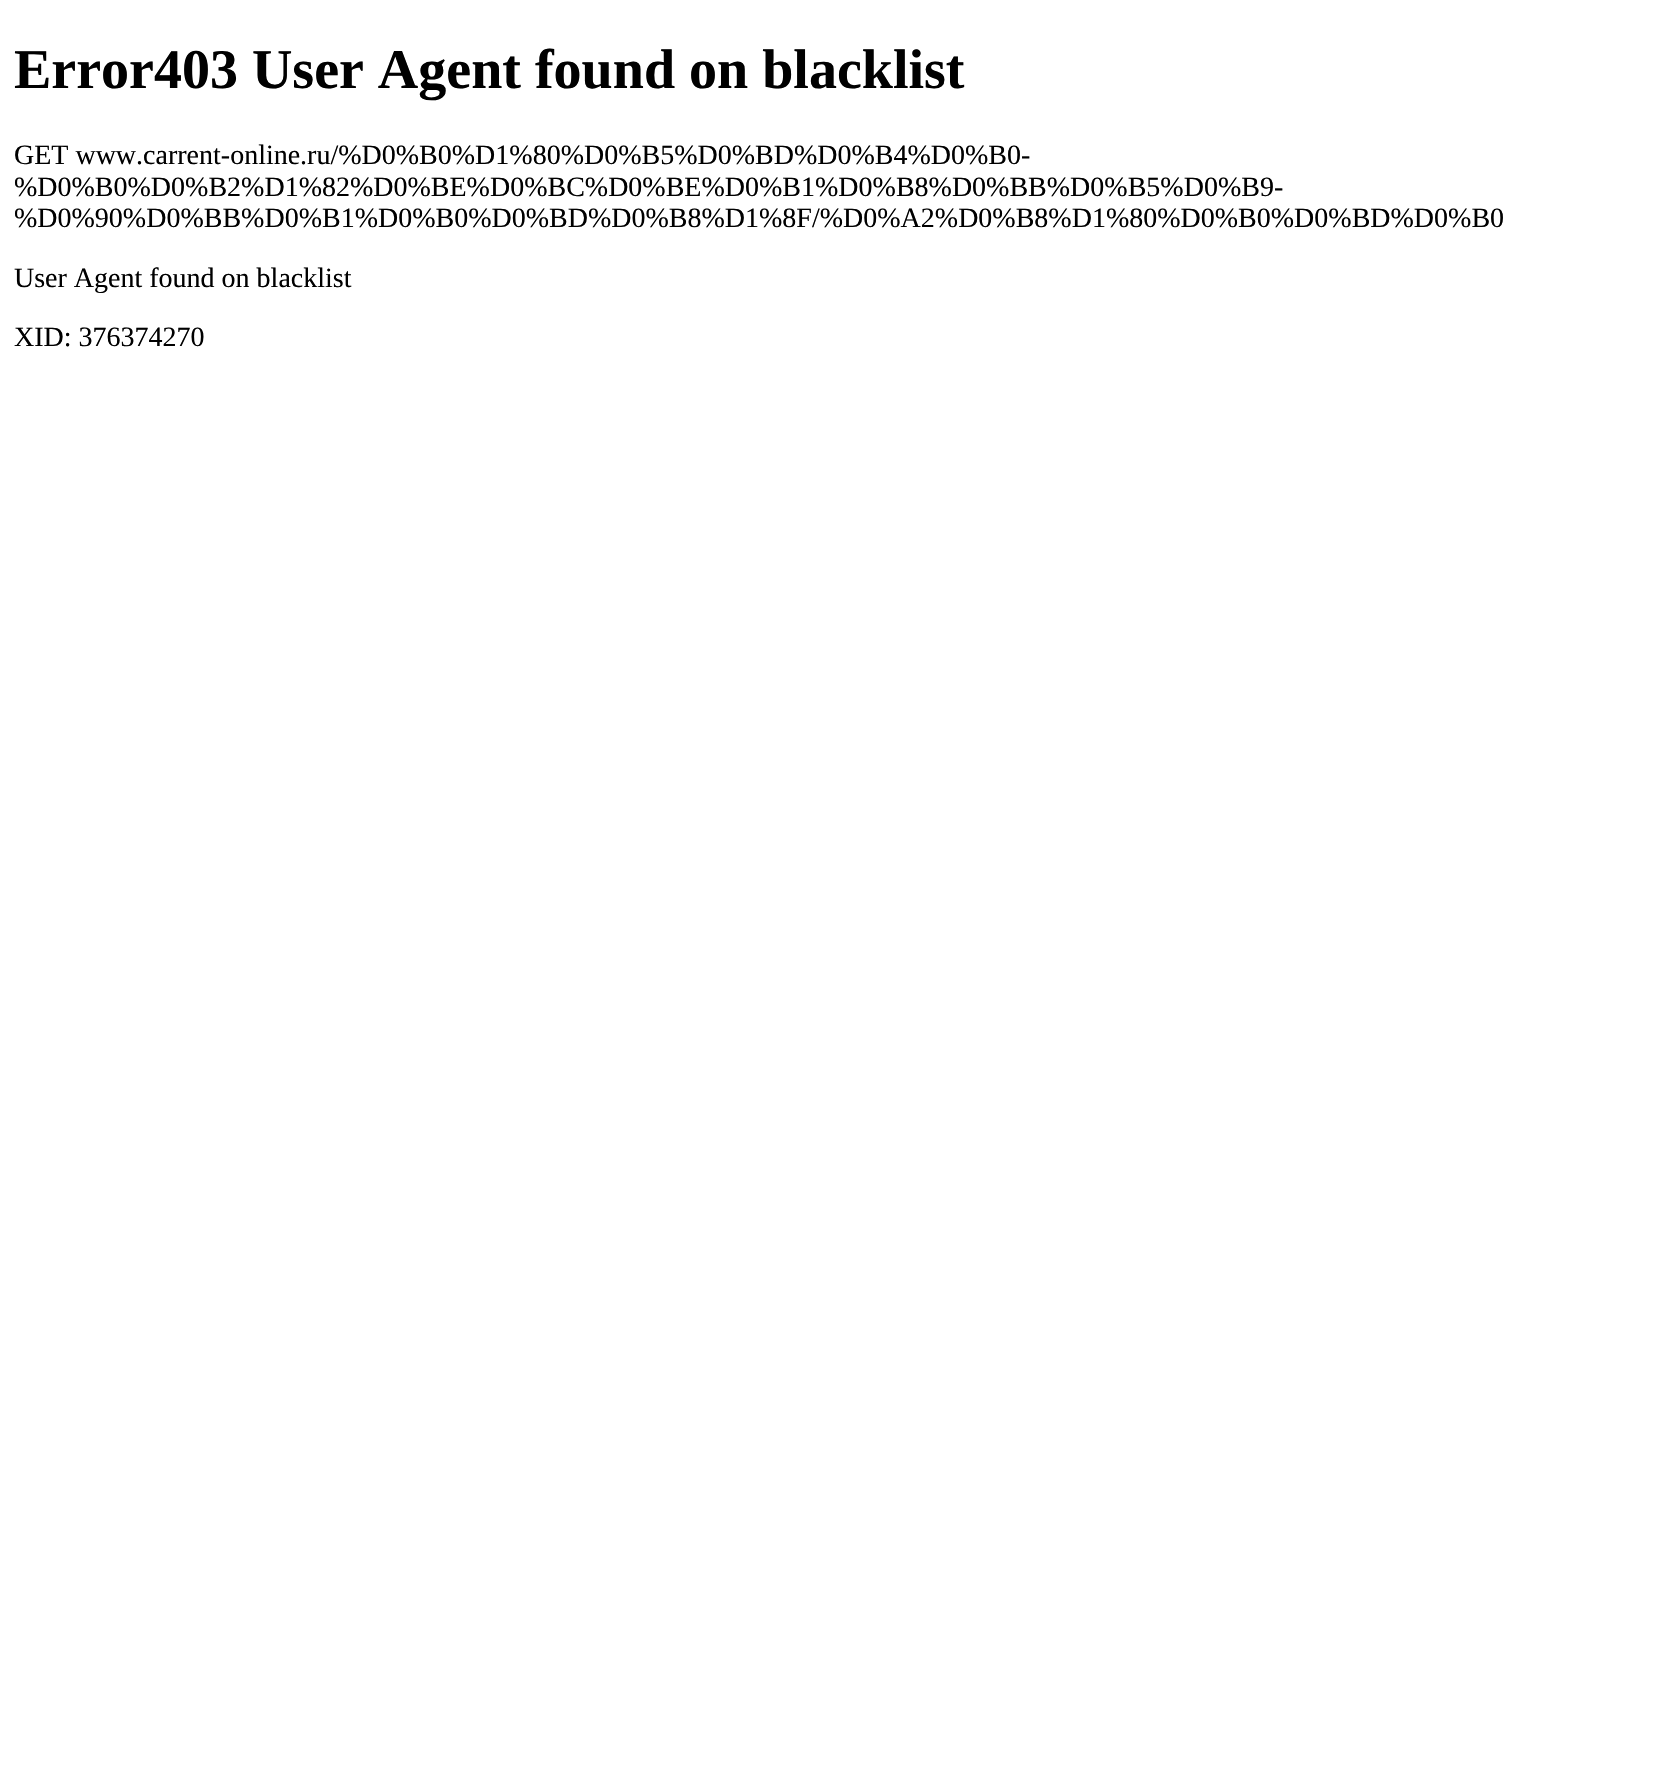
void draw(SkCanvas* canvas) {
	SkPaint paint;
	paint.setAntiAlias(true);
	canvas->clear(0xffffffff);
	SkFont f1(fontMgr->matchFamilyStyle("Liberation Serif", SkFontStyle::Bold()), 56);
	f1.setSubpixel(true);
	paint.setColor(0xff000000);
	canvas->drawString("Error403 User Agent found on blacklist", 14, 88, f1, paint);
	SkFont f2(fontMgr->matchFamilyStyle("Liberation Serif", SkFontStyle::Normal()), 28);
	f2.setSubpixel(true);
	canvas->drawString("GET www.carrent-online.ru/%D0%B0%D1%80%D0%B5%D0%BD%D0%B4%D0%B0-", 14, 164, f2, paint);
	canvas->drawString("%D0%B0%D0%B2%D1%82%D0%BE%D0%BC%D0%BE%D0%B1%D0%B8%D0%BB%D0%B5%D0%B9-", 14, 196, f2, paint);
	canvas->drawString("%D0%90%D0%BB%D0%B1%D0%B0%D0%BD%D0%B8%D1%8F/%D0%A2%D0%B8%D1%80%D0%B0%D0%BD%D0%B0", 14, 227, f2, paint);
	canvas->drawString("User Agent found on blacklist", 14, 287, f2, paint);
	canvas->drawString("XID: 376374270", 14, 346, f2, paint);
}
